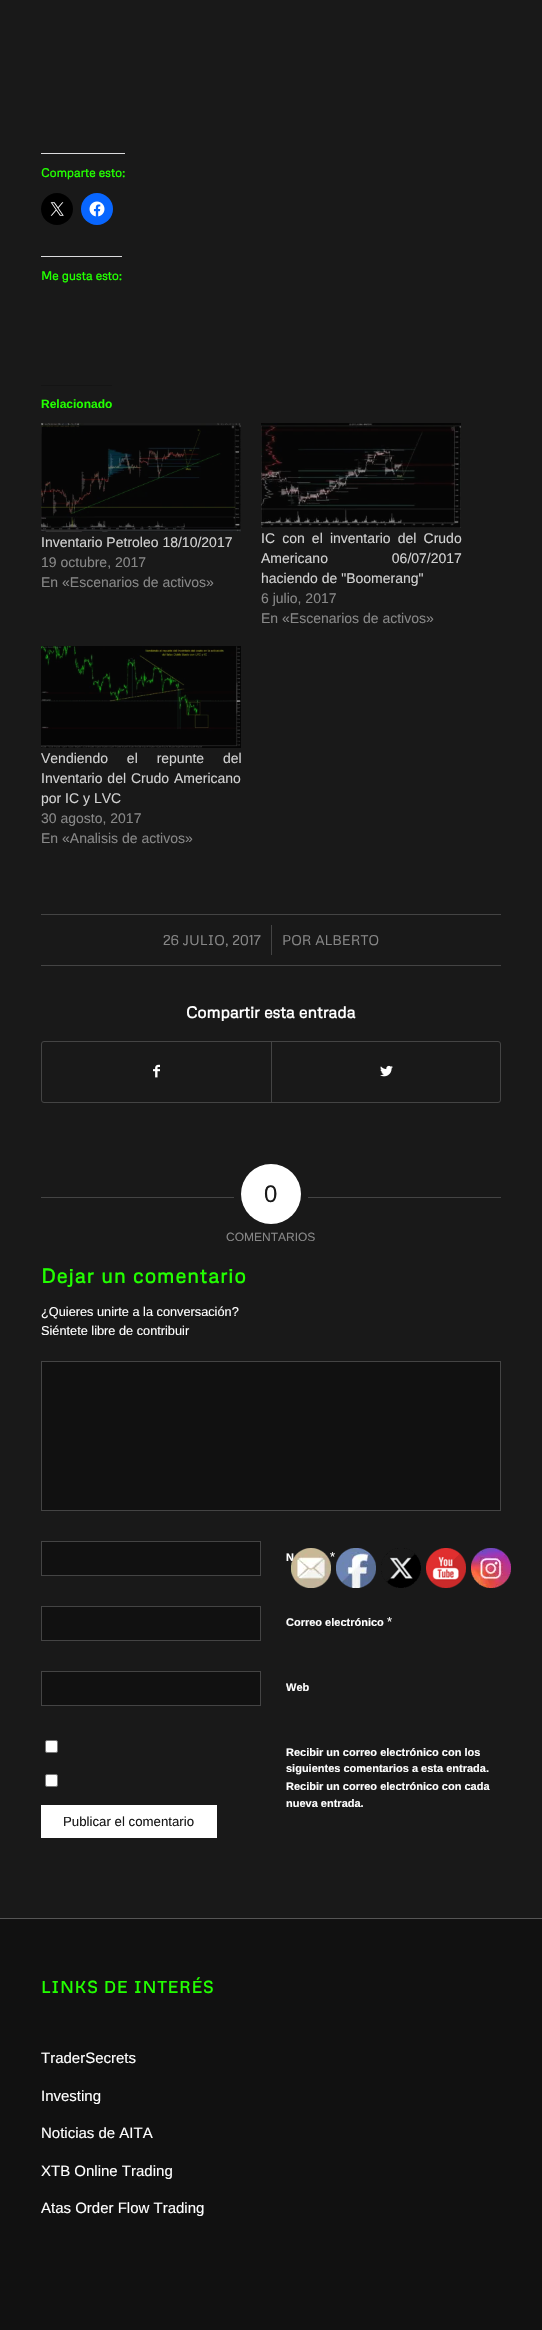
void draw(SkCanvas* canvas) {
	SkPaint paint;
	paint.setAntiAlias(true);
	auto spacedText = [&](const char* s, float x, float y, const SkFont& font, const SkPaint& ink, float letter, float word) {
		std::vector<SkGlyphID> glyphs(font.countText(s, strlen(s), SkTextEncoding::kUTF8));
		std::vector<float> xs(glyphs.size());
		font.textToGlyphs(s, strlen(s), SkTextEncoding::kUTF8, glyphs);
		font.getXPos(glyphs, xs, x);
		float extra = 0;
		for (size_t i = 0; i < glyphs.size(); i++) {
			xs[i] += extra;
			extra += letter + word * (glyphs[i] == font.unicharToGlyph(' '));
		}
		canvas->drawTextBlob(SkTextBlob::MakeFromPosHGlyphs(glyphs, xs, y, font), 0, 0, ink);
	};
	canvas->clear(0xff191919);
	paint.setColor(0xffdcdcde);
	canvas->drawRect(SkRect::MakeXYWH(41, 153, 84, 1), paint);
	SkFont f1(fontMgr->matchFamilyStyle("Metrophobic", SkFontStyle::Bold()), 12);
	f1.setSubpixel(true);
	paint.setColor(0xff22ff00);
	canvas->drawString("Comparte esto:", 41, 177, f1, paint);
	paint.setColor(0xff000000);
	canvas->drawCircle(57, 209, 16, paint);
	canvas->drawImageRect(SkImages::DeferredFromEncodedData(SkData::MakeFromFileName("img1.png")), SkRect::MakeXYWH(50, 202, 14, 14), SkSamplingOptions());
	paint.setColor(0xff0866ff);
	canvas->drawCircle(97, 209, 16, paint);
	canvas->drawImageRect(SkImages::DeferredFromEncodedData(SkData::MakeFromFileName("img2.png")), SkRect::MakeXYWH(89, 201, 16, 16), SkSamplingOptions());
	paint.setColor(0xffdcdcde);
	canvas->drawRect(SkRect::MakeXYWH(41, 256, 81, 1), paint);
	paint.setColor(0xff22ff00);
	canvas->drawString("Me gusta esto:", 41, 280, f1, paint);
	paint.setColor(0xff141414);
	canvas->drawRect(SkRect::MakeXYWH(41, 385, 71, 1), paint);
	SkFont f2(fontMgr->matchFamilyStyle("Liberation Sans", SkFontStyle::Bold()), 12);
	f2.setSubpixel(true);
	paint.setColor(0xff22ff00);
	canvas->drawString("Relacionado", 41, 408, f2, paint);
	canvas->drawImageRect(SkImages::DeferredFromEncodedData(SkData::MakeFromFileName("img3.png")), SkRect::MakeXYWH(41, 423, 200, 109), SkSamplingOptions());
	SkFont f3(fontMgr->matchFamilyStyle("Liberation Sans", SkFontStyle::Normal()), 14);
	f3.setSubpixel(true);
	paint.setColor(0xffd1d1d1);
	canvas->drawString("Inventario Petroleo 18/10/2017", 41, 547, f3, paint);
	paint.setColor(0xff878787);
	canvas->drawString("19 octubre, 2017", 41, 567, f3, paint);
	canvas->drawString("En «Escenarios de activos»", 41, 587, f3, paint);
	canvas->drawImageRect(SkImages::DeferredFromEncodedData(SkData::MakeFromFileName("img4.png")), SkRect::MakeXYWH(261, 423, 200, 105), SkSamplingOptions());
	paint.setColor(0xffd1d1d1);
	spacedText("IC con el inventario del Crudo", 261, 543, f3, paint, 0, 3.25);
	spacedText("Americano 06/07/2017", 261, 563, f3, paint, 0, 60);
	canvas->drawString("haciendo de \"Boomerang\"", 261, 583, f3, paint);
	paint.setColor(0xff878787);
	canvas->drawString("6 julio, 2017", 261, 603, f3, paint);
	canvas->drawString("En «Escenarios de activos»", 261, 623, f3, paint);
	canvas->drawImageRect(SkImages::DeferredFromEncodedData(SkData::MakeFromFileName("img5.png")), SkRect::MakeXYWH(41, 646, 200, 102), SkSamplingOptions());
	paint.setColor(0xffd1d1d1);
	spacedText("Vendiendo el repunte del", 41, 763, f3, paint, 0, 15);
	spacedText("Inventario del Crudo Americano", 41, 783, f3, paint, 0, 1);
	canvas->drawString("por IC y LVC", 41, 803, f3, paint);
	paint.setColor(0xff878787);
	canvas->drawString("30 agosto, 2017", 41, 823, f3, paint);
	canvas->drawString("En «Analisis de activos»", 41, 843, f3, paint);
	paint.setColor(0xff444444);
	canvas->drawRect(SkRect::MakeXYWH(41, 914, 460, 1), paint);
	canvas->drawRect(SkRect::MakeXYWH(41, 965, 460, 1), paint);
	SkFont f4(fontMgr->matchFamilyStyle("Metrophobic", SkFontStyle::Normal()), 14);
	f4.setSubpixel(true);
	paint.setColor(0xff878787);
	canvas->drawString("26 JULIO, 2017", 163, 945, f4, paint);
	paint.setColor(0xff444444);
	canvas->drawRect(SkRect::MakeXYWH(271, 925, 1, 30), paint);
	paint.setColor(0xff878787);
	canvas->drawString("POR ALBERTO", 282, 945, f4, paint);
	SkFont f5(fontMgr->matchFamilyStyle("Metrophobic", SkFontStyle::Bold()), 16);
	f5.setSubpixel(true);
	paint.setColor(0xffffffff);
	canvas->drawString("Compartir esta entrada", 186, 1018, f5, paint);
	paint.setStroke(true);
	paint.setStrokeWidth(1);
	paint.setColor(0xff444444);
	canvas->drawRoundRect(SkRect::MakeXYWH(41.5, 1041.5, 459, 61), 2.5, 2.5, paint);
	canvas->drawImageRect(SkImages::DeferredFromEncodedData(SkData::MakeFromFileName("img6.png")), SkRect::MakeXYWH(153, 1064, 7, 14), SkSamplingOptions());
	paint.setStroke(false);
	canvas->drawRect(SkRect::MakeXYWH(271, 1042, 1, 60), paint);
	canvas->drawImageRect(SkImages::DeferredFromEncodedData(SkData::MakeFromFileName("img7.png")), SkRect::MakeXYWH(380, 1065, 13, 12), SkSamplingOptions());
	canvas->drawRect(SkRect::MakeXYWH(41, 1197, 193, 1), paint);
	paint.setColor(0xffffffff);
	canvas->drawCircle(271, 1194, 30, paint);
	SkFont f6(fontMgr->matchFamilyStyle("Liberation Sans", SkFontStyle::Normal()), 24);
	f6.setSubpixel(true);
	paint.setColor(0xff191919);
	canvas->drawString("0", 264, 1202, f6, paint);
	paint.setColor(0xff444444);
	canvas->drawRect(SkRect::MakeXYWH(308, 1197, 193, 1), paint);
	SkFont f7(fontMgr->matchFamilyStyle("Liberation Sans", SkFontStyle::Normal()), 12);
	f7.setSubpixel(true);
	paint.setColor(0xff878787);
	canvas->drawString("COMENTARIOS", 226, 1241, f7, paint);
	SkFont f8(fontMgr->matchFamilyStyle("Metrophobic", SkFontStyle::Bold()), 20);
	f8.setSubpixel(true);
	paint.setColor(0xff22ff00);
	spacedText("Dejar un comentario", 41, 1283, f8, paint, 1, 0);
	SkFont f9(fontMgr->matchFamilyStyle("Liberation Sans", SkFontStyle::Normal()), 12.75);
	f9.setSubpixel(true);
	paint.setColor(0xffffffff);
	canvas->drawString("¿Quieres unirte a la conversación?", 41, 1316, f9, paint);
	canvas->drawString("Siéntete libre de contribuir", 41, 1335, f9, paint);
	paint.setColor(0xff111111);
	canvas->drawRect(SkRect::MakeXYWH(41.5, 1361.5, 459, 149), paint);
	paint.setStroke(true);
	paint.setColor(0xff444444);
	canvas->drawRect(SkRect::MakeXYWH(41.5, 1361.5, 459, 149), paint);
	paint.setStroke(false);
	paint.setColor(0xff111111);
	canvas->drawRect(SkRect::MakeXYWH(41.5, 1541.5, 219, 34), paint);
	paint.setStroke(true);
	paint.setColor(0xff444444);
	canvas->drawRect(SkRect::MakeXYWH(41.5, 1541.5, 219, 34), paint);
	SkFont f10(fontMgr->matchFamilyStyle("Liberation Sans", SkFontStyle::Bold()), 11);
	f10.setSubpixel(true);
	paint.setStroke(false);
	paint.setColor(0xffffffff);
	canvas->drawString("N", 286, 1561, f10, paint);
	SkFont f11(fontMgr->matchFamilyStyle("Liberation Sans", SkFontStyle::Normal()), 13);
	f11.setSubpixel(true);
	canvas->drawString("*", 330, 1561, f11, paint);
	paint.setColor(0xff111111);
	canvas->drawRect(SkRect::MakeXYWH(41.5, 1606.5, 219, 34), paint);
	paint.setStroke(true);
	paint.setColor(0xff444444);
	canvas->drawRect(SkRect::MakeXYWH(41.5, 1606.5, 219, 34), paint);
	paint.setStroke(false);
	paint.setColor(0xffffffff);
	canvas->drawString("Correo electrónico", 286, 1626, f10, paint);
	canvas->drawString("*", 387, 1626, f11, paint);
	paint.setColor(0xff111111);
	canvas->drawRect(SkRect::MakeXYWH(41.5, 1671.5, 219, 34), paint);
	paint.setStroke(true);
	paint.setColor(0xff444444);
	canvas->drawRect(SkRect::MakeXYWH(41.5, 1671.5, 219, 34), paint);
	paint.setStroke(false);
	paint.setColor(0xffffffff);
	canvas->drawString("Web", 286, 1691, f10, paint);
	canvas->drawRoundRect(SkRect::MakeXYWH(45.5, 1740.5, 12, 12), 1.5, 1.5, paint);
	paint.setStroke(true);
	paint.setColor(0xff767676);
	canvas->drawRoundRect(SkRect::MakeXYWH(45.5, 1740.5, 12, 12), 1.5, 1.5, paint);
	paint.setStroke(false);
	paint.setColor(0xffffffff);
	canvas->drawString("Recibir un correo electrónico con los", 286, 1756, f10, paint);
	canvas->drawString("siguientes comentarios a esta entrada.", 286, 1772, f10, paint);
	canvas->drawRoundRect(SkRect::MakeXYWH(45.5, 1774.5, 12, 12), 1.5, 1.5, paint);
	paint.setStroke(true);
	paint.setColor(0xff767676);
	canvas->drawRoundRect(SkRect::MakeXYWH(45.5, 1774.5, 12, 12), 1.5, 1.5, paint);
	paint.setStroke(false);
	paint.setColor(0xffffffff);
	canvas->drawString("Recibir un correo electrónico con cada", 286, 1790, f10, paint);
	canvas->drawString("nueva entrada.", 286, 1807, f10, paint);
	canvas->drawRect(SkRect::MakeXYWH(41, 1805, 176, 33), paint);
	SkFont f12(fontMgr->matchFamilyStyle("Liberation Sans", SkFontStyle::Normal()), 13.25);
	f12.setSubpixel(true);
	paint.setColor(0xff191919);
	canvas->drawString("Publicar el comentario", 63, 1826, f12, paint);
	paint.setColor(0xff111111);
	canvas->drawRect(SkRect::MakeXYWH(0, 1919, 542, 411), paint);
	paint.setColor(0xff555555);
	canvas->drawRect(SkRect::MakeXYWH(0, 1918, 542, 1), paint);
	SkFont f13(fontMgr->matchFamilyStyle("Metrophobic", SkFontStyle::Bold()), 16.5);
	f13.setSubpixel(true);
	paint.setColor(0xff22ff00);
	spacedText("LINKS DE INTERÉS", 41, 1993, f13, paint, 1, 0);
	SkFont f14(fontMgr->matchFamilyStyle("Liberation Sans", SkFontStyle::Normal()), 15);
	f14.setSubpixel(true);
	paint.setColor(0xffffffff);
	canvas->drawString("TraderSecrets", 41, 2063, f14, paint);
	canvas->drawString("Investing", 41, 2101, f14, paint);
	canvas->drawString("Noticias de AITA", 41, 2138, f14, paint);
	canvas->drawString("XTB Online Trading", 41, 2176, f14, paint);
	canvas->drawString("Atas Order Flow Trading", 41, 2213, f14, paint);
	canvas->drawImageRect(SkImages::DeferredFromEncodedData(SkData::MakeFromFileName("img8.png")), SkRect::MakeXYWH(291, 1548, 40, 40), SkSamplingOptions());
	canvas->drawImageRect(SkImages::DeferredFromEncodedData(SkData::MakeFromFileName("img9.png")), SkRect::MakeXYWH(336, 1548, 40, 40), SkSamplingOptions());
	canvas->drawImageRect(SkImages::DeferredFromEncodedData(SkData::MakeFromFileName("img10.png")), SkRect::MakeXYWH(381, 1548, 40, 40), SkSamplingOptions());
	canvas->drawImageRect(SkImages::DeferredFromEncodedData(SkData::MakeFromFileName("img11.png")), SkRect::MakeXYWH(426, 1548, 40, 40), SkSamplingOptions());
	canvas->drawImageRect(SkImages::DeferredFromEncodedData(SkData::MakeFromFileName("img12.png")), SkRect::MakeXYWH(471, 1548, 40, 40), SkSamplingOptions());
}
